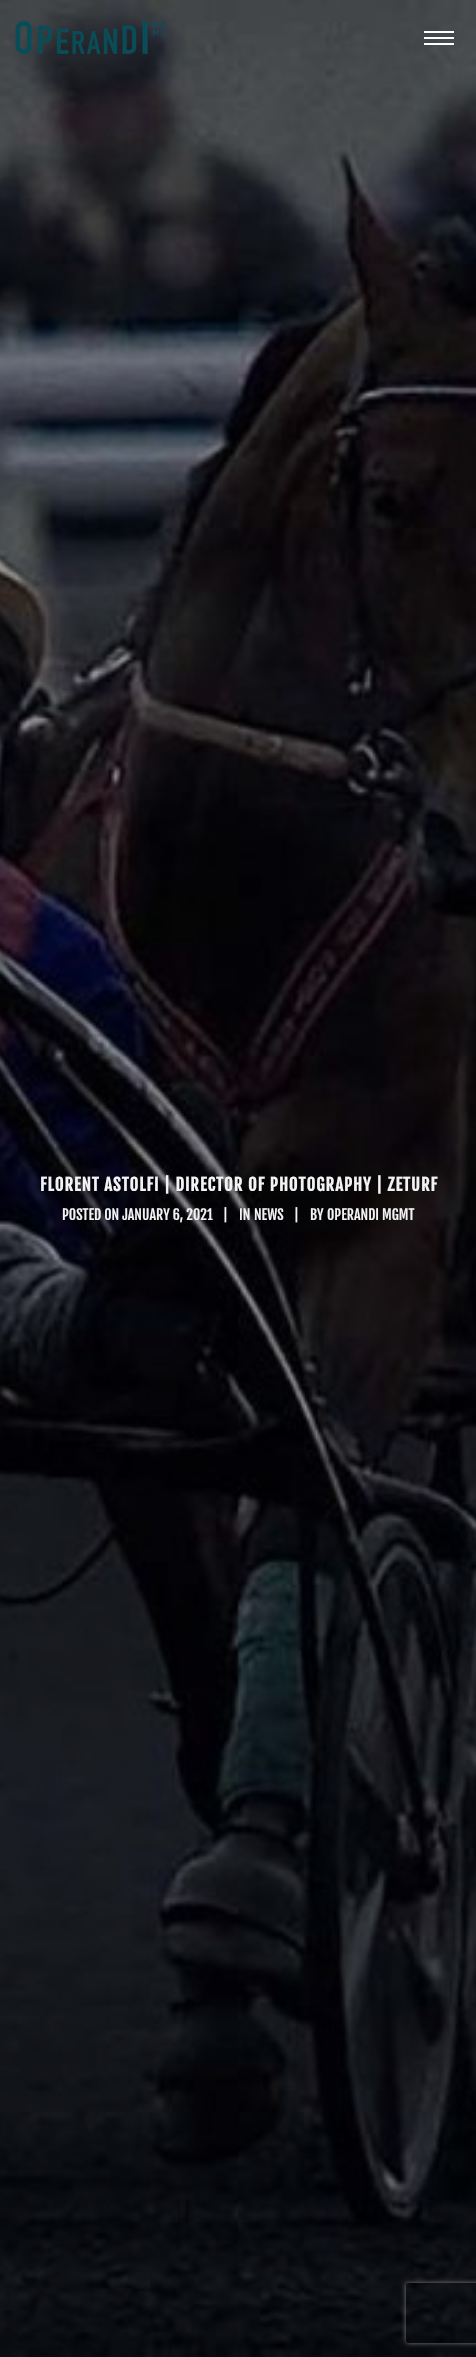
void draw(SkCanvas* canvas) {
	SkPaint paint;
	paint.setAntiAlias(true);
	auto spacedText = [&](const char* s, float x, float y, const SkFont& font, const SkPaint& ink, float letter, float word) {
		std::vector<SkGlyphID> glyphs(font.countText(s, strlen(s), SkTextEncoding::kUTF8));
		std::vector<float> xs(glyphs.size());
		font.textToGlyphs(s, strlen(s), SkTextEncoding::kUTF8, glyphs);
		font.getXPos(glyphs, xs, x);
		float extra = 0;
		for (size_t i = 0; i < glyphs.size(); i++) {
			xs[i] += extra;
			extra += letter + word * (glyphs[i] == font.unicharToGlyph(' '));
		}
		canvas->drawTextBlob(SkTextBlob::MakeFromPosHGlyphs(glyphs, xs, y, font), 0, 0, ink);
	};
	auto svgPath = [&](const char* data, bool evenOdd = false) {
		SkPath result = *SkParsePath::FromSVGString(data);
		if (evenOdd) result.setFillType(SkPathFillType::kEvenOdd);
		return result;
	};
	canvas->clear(0xffffffff);
	canvas->drawImageRect(SkImages::DeferredFromEncodedData(SkData::MakeFromFileName("img2.png")), SkRect::MakeXYWH(0, 0, 476, 2357), SkSamplingOptions());
	canvas->drawImageRect(SkImages::DeferredFromEncodedData(SkData::MakeFromFileName("img1.png")), SkRect::MakeXYWH(15, 20, 151, 35), SkSamplingOptions());
	paint.setColor(0xffffffff);
	canvas->drawRect(SkRect::MakeXYWH(424, 31, 30, 2), paint);
	canvas->drawRect(SkRect::MakeXYWH(424, 37, 30, 2), paint);
	canvas->drawRect(SkRect::MakeXYWH(424, 43, 30, 2), paint);
	SkFont f1(fontMgr->matchFamilyStyle("Fjalla One", SkFontStyle::Bold()), 16.6);
	f1.setSubpixel(true);
	paint.setColor(0xfff3f3f3);
	spacedText("FLORENT ASTOLFI | DIRECTOR OF PHOTOGRAPHY | ZETURF", 40, 1191, f1, paint, 1, 0);
	SkFont f2(fontMgr->matchFamilyStyle("Fjalla One", SkFontStyle::Normal()), 14);
	f2.setSubpixel(true);
	canvas->drawString("POSTED ON JANUARY 6, 2021", 62, 1220, f2, paint);
	canvas->drawString("|", 223, 1220, f2, paint);
	canvas->drawString("IN", 239, 1220, f2, paint);
	canvas->drawString("NEWS", 254, 1220, f2, paint);
	canvas->drawString("|", 294, 1220, f2, paint);
	canvas->drawString("BY", 310, 1220, f2, paint);
	canvas->drawString("OPERANDI MGMT", 327, 1220, f2, paint);
	canvas->save();
	canvas->clipPath(svgPath("M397 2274H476V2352H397ZM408 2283H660C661 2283 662 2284 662 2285V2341C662 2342 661 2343 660 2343H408C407 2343 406 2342 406 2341V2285C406 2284 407 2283 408 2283Z", true), true);
	paint.setColor(0xff808080);
	paint.setMaskFilter(SkMaskFilter::MakeBlur(kNormal_SkBlurStyle, 2.5));
	canvas->drawRoundRect(SkRect::MakeXYWH(406, 2283, 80, 60), 2, 2, paint);
	paint.setMaskFilter(nullptr);
	canvas->restore();
}
